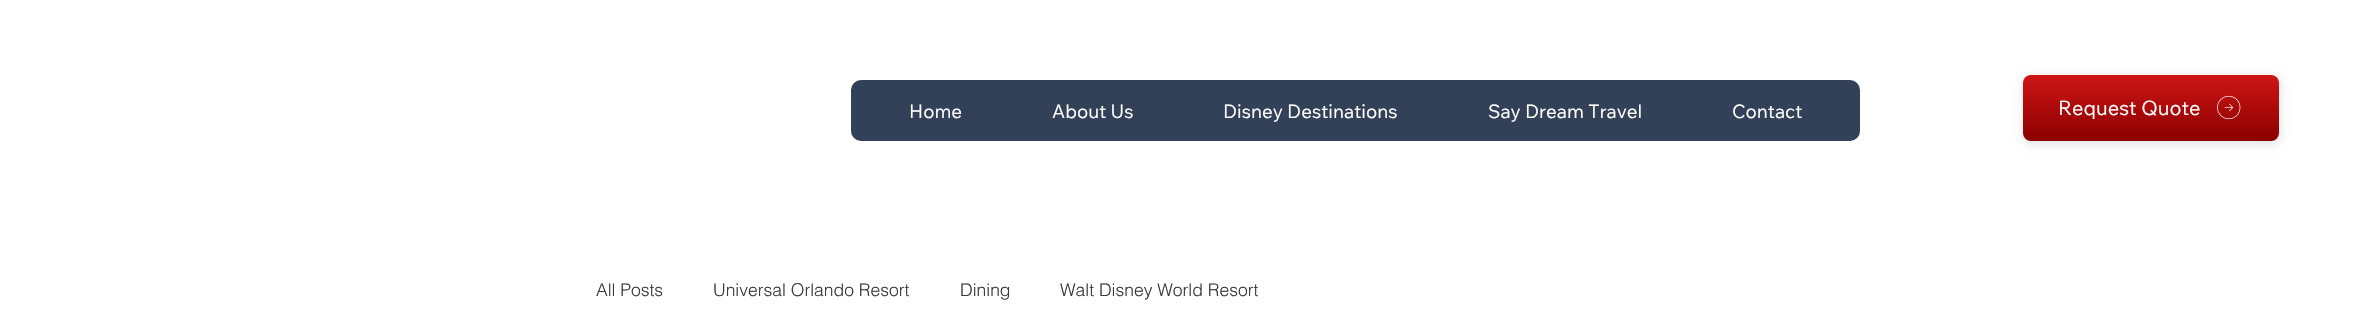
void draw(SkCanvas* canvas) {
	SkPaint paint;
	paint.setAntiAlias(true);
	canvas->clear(0xffffffff);
	paint.setColor(0xff324158);
	canvas->drawRoundRect(SkRect::MakeXYWH(851, 80, 1009, 61), 10, 10, paint);
	SkFont f1(fontMgr->matchFamilyStyle("Wix Madefor Text", SkFontStyle::Normal()), 18.75);
	f1.setSubpixel(true);
	paint.setColor(0xffffffff);
	canvas->drawString("Home", 909, 118, f1, paint);
	canvas->drawString("About Us", 1052, 118, f1, paint);
	canvas->drawString("Disney Destinations", 1223, 118, f1, paint);
	canvas->drawString("Say Dream Travel", 1488, 118, f1, paint);
	canvas->drawString("Contact", 1732, 118, f1, paint);
	paint.setColor(0x1a000000);
	paint.setMaskFilter(SkMaskFilter::MakeBlur(kNormal_SkBlurStyle, 5));
	canvas->drawRoundRect(SkRect::MakeXYWH(2023, 76, 258, 69), 9, 9, paint);
	paint.setMaskFilter(nullptr);
	{
		const SkColor colors[] = {0xffcd1515, 0xff8b0000};
		const float stops[] = {0, 1};
		const SkPoint ends[] = {{2151, 75}, {2151, 141}};
		paint.setShader(SkGradientShader::MakeLinear(ends, colors, stops, 2, SkTileMode::kClamp));
		paint.setAlpha(255);
	}
	canvas->drawRoundRect(SkRect::MakeXYWH(2023, 75, 256, 66), 8, 8, paint);
	SkFont f2(fontMgr->matchFamilyStyle("Wix Madefor Text", SkFontStyle::Normal()), 20);
	f2.setSubpixel(true);
	paint.setShader(nullptr);
	paint.setColor(0xffffffff);
	canvas->drawString("Request Quote", 2058, 115, f2, paint);
	canvas->drawImageRect(SkImages::DeferredFromEncodedData(SkData::MakeFromFileName("img1.png")), SkRect::MakeXYWH(2217, 95, 24, 25), SkSamplingOptions());
	SkFont f3(fontMgr->matchFamilyStyle("helvetica", SkFontStyle(300, SkFontStyle::kNormal_Width, SkFontStyle::kUpright_Slant)), 17.5);
	f3.setSubpixel(true);
	paint.setColor(0xff3b3a3a);
	canvas->drawString("All Posts", 596, 296, f3, paint);
	canvas->drawString("Universal Orlando Resort", 713, 296, f3, paint);
	canvas->drawString("Dining", 960, 296, f3, paint);
	canvas->drawString("Walt Disney World Resort", 1060, 296, f3, paint);
}
